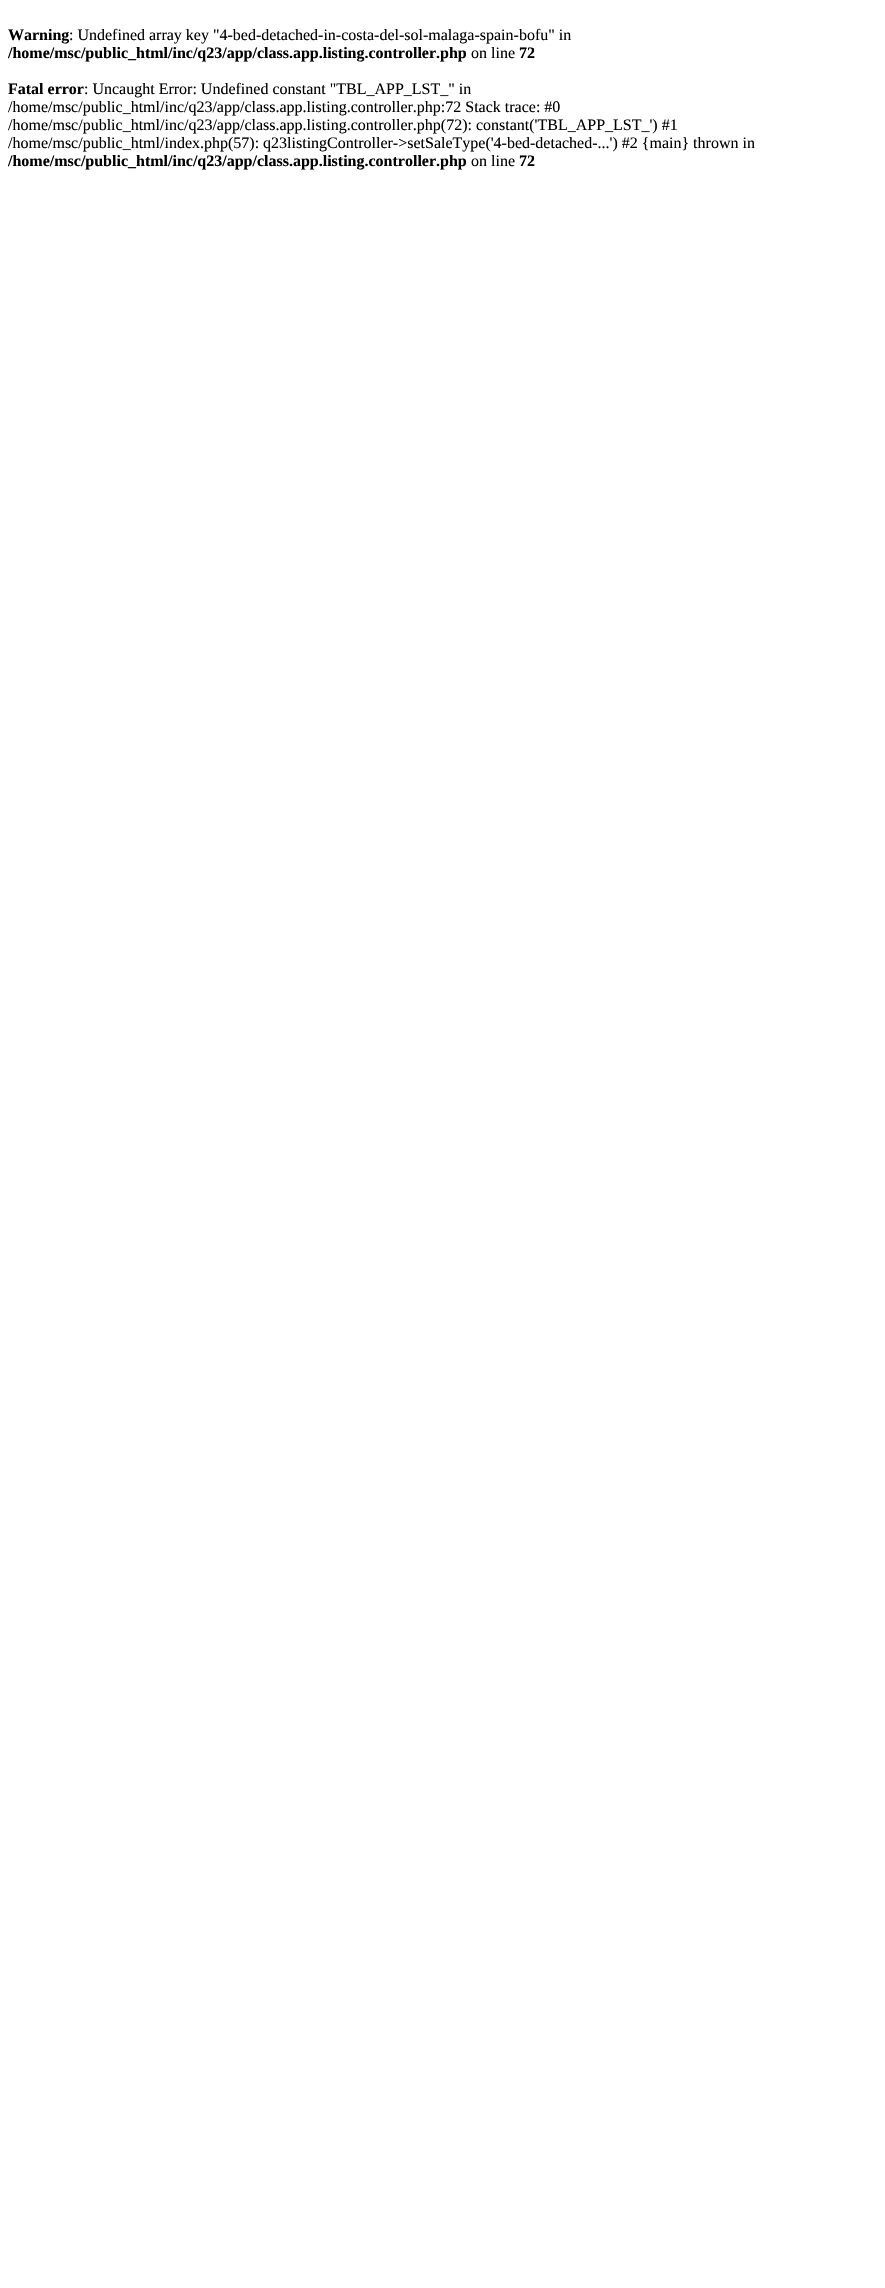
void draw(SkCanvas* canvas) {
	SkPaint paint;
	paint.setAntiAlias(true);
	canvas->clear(0xffffffff);
	SkFont f1(fontMgr->matchFamilyStyle("Liberation Serif", SkFontStyle::Bold()), 16);
	f1.setSubpixel(true);
	paint.setColor(0xff000000);
	canvas->drawString("Warning", 8, 40, f1, paint);
	SkFont f2(fontMgr->matchFamilyStyle("Liberation Serif", SkFontStyle::Normal()), 16);
	f2.setSubpixel(true);
	canvas->drawString(": Undefined array key \"4-bed-detached-in-costa-del-sol-malaga-spain-bofu\" in", 69, 40, f2, paint);
	canvas->drawString("/home/msc/public_html/inc/q23/app/class.app.listing.controller.php", 8, 58, f1, paint);
	canvas->drawString("on line", 471, 58, f2, paint);
	canvas->drawString("72", 519, 58, f1, paint);
	canvas->drawString("Fatal error", 8, 94, f1, paint);
	canvas->drawString(": Uncaught Error: Undefined constant \"TBL_APP_LST_\" in", 84, 94, f2, paint);
	canvas->drawString("/home/msc/public_html/inc/q23/app/class.app.listing.controller.php:72 Stack trace: #0", 8, 112, f2, paint);
	canvas->drawString("/home/msc/public_html/inc/q23/app/class.app.listing.controller.php(72): constant('TBL_APP_LST_') #1", 8, 130, f2, paint);
	canvas->drawString("/home/msc/public_html/index.php(57): q23listingController->setSaleType('4-bed-detached-...') #2 {main} thrown in", 8, 148, f2, paint);
	canvas->drawString("/home/msc/public_html/inc/q23/app/class.app.listing.controller.php", 8, 166, f1, paint);
	canvas->drawString("on line", 471, 166, f2, paint);
	canvas->drawString("72", 519, 166, f1, paint);
}
